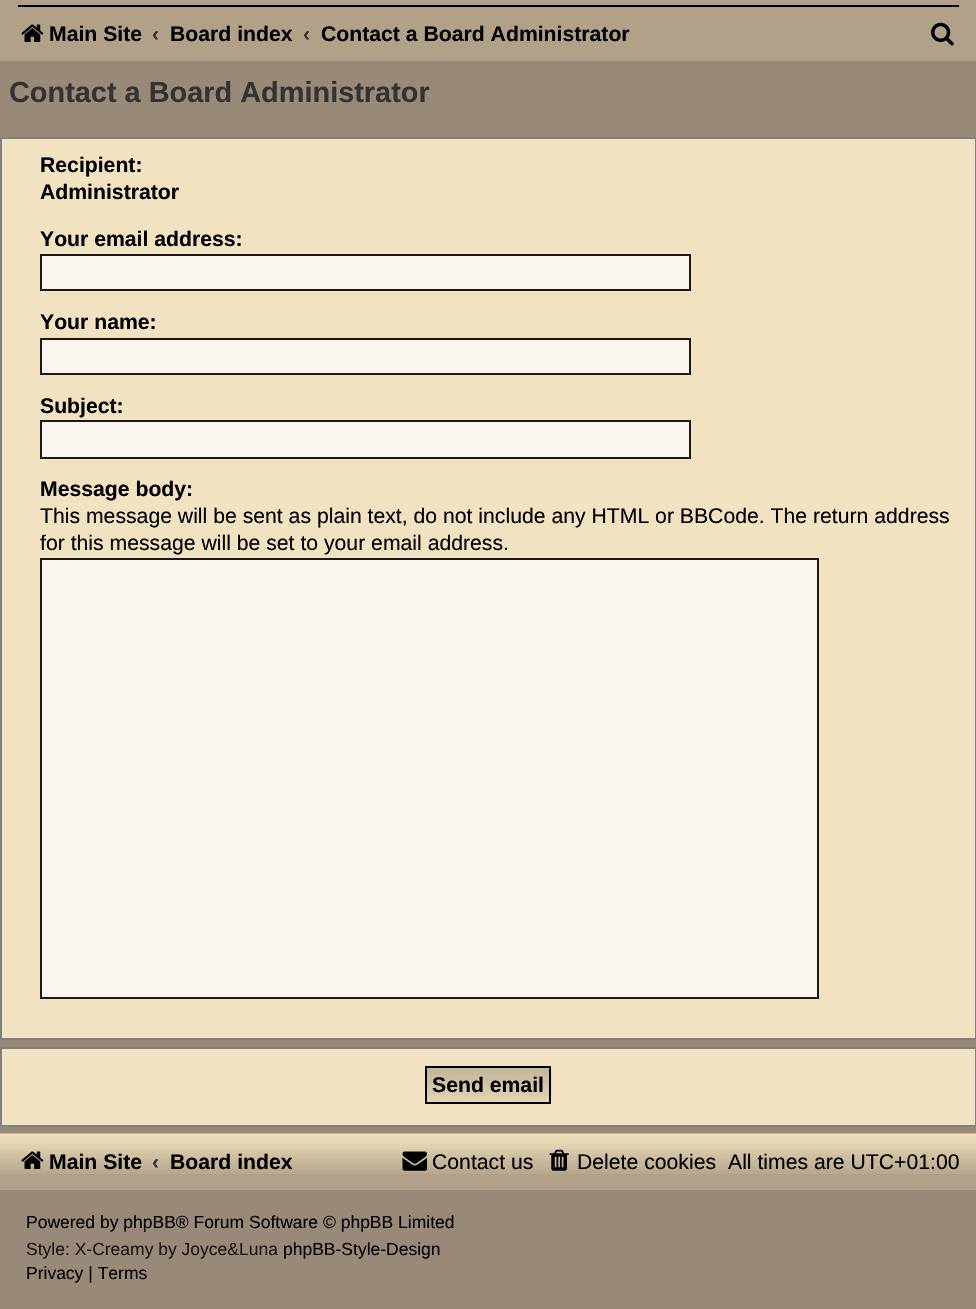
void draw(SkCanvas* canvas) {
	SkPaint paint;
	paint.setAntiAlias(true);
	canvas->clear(0xff998979);
	paint.setColor(0xffb1a189);
	canvas->drawRect(SkRect::MakeXYWH(0, 0, 976, 61), paint);
	paint.setColor(0xff000000);
	canvas->drawRect(SkRect::MakeXYWH(18, 5, 941, 2), paint);
	canvas->drawImageRect(SkImages::DeferredFromEncodedData(SkData::MakeFromFileName("img1.png")), SkRect::MakeXYWH(21, 24, 23, 18), SkSamplingOptions());
	SkFont f1(fontMgr->matchFamilyStyle("Liberation Sans", SkFontStyle::Bold()), 21.2);
	f1.setSubpixel(true);
	canvas->drawString("Main Site", 49, 41, f1, paint);
	paint.setColor(0xff333333);
	canvas->drawString("‹", 152, 41, f1, paint);
	paint.setColor(0xff000000);
	canvas->drawString("Board index", 170, 41, f1, paint);
	paint.setColor(0xff333333);
	canvas->drawString("‹", 303, 41, f1, paint);
	paint.setColor(0xff000000);
	canvas->drawString("Contact a Board Administrator", 321, 41, f1, paint);
	canvas->drawImageRect(SkImages::DeferredFromEncodedData(SkData::MakeFromFileName("img2.png")), SkRect::MakeXYWH(931, 22, 23, 24), SkSamplingOptions());
	SkFont f2(fontMgr->matchFamilyStyle("Liberation Sans", SkFontStyle::Bold()), 28.9);
	f2.setSubpixel(true);
	paint.setColor(0xff333333);
	canvas->drawString("Contact a Board Administrator", 9, 102, f2, paint);
	paint.setColor(0xfff1e3c1);
	canvas->drawRect(SkRect::MakeXYWH(1, 138, 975, 901), paint);
	paint.setStroke(true);
	paint.setStrokeWidth(2);
	paint.setColor(0xff808080);
	canvas->drawRect(SkRect::MakeXYWH(1, 138, 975, 901), paint);
	paint.setStroke(false);
	paint.setColor(0xff000000);
	canvas->drawString("Recipient:", 40, 172, f1, paint);
	canvas->drawString("Administrator", 40, 199, f1, paint);
	canvas->drawString("Your email address:", 40, 246, f1, paint);
	paint.setColor(0xfffaf6ed);
	canvas->drawRect(SkRect::MakeXYWH(41, 255, 649, 35), paint);
	paint.setStroke(true);
	paint.setColor(0xff181818);
	canvas->drawRect(SkRect::MakeXYWH(41, 255, 649, 35), paint);
	paint.setStroke(false);
	paint.setColor(0xff000000);
	canvas->drawString("Your name:", 40, 329, f1, paint);
	paint.setColor(0xfffaf6ed);
	canvas->drawRect(SkRect::MakeXYWH(41, 339, 649, 35), paint);
	paint.setStroke(true);
	paint.setColor(0xff181818);
	canvas->drawRect(SkRect::MakeXYWH(41, 339, 649, 35), paint);
	paint.setStroke(false);
	paint.setColor(0xff000000);
	canvas->drawString("Subject:", 40, 413, f1, paint);
	paint.setColor(0xfffaf6ed);
	canvas->drawRect(SkRect::MakeXYWH(41, 421, 649, 37), paint);
	paint.setStroke(true);
	paint.setColor(0xff181818);
	canvas->drawRect(SkRect::MakeXYWH(41, 421, 649, 37), paint);
	paint.setStroke(false);
	paint.setColor(0xff000000);
	canvas->drawString("Message body:", 40, 496, f1, paint);
	SkFont f3(fontMgr->matchFamilyStyle("Liberation Sans", SkFontStyle::Normal()), 21.2);
	f3.setSubpixel(true);
	canvas->drawString("This message will be sent as plain text, do not include any HTML or BBCode. The return address", 40, 523, f3, paint);
	canvas->drawString("for this message will be set to your email address.", 40, 550, f3, paint);
	paint.setColor(0xfffaf6ed);
	canvas->drawRect(SkRect::MakeXYWH(41, 559, 777, 439), paint);
	paint.setStroke(true);
	paint.setColor(0xff181818);
	canvas->drawRect(SkRect::MakeXYWH(41, 559, 777, 439), paint);
	paint.setStroke(false);
	paint.setColor(0xfff1e3c1);
	canvas->drawRect(SkRect::MakeXYWH(1, 1048, 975, 78), paint);
	paint.setStroke(true);
	paint.setColor(0xff808080);
	canvas->drawRect(SkRect::MakeXYWH(1, 1048, 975, 78), paint);
	canvas->drawImageRect(SkImages::DeferredFromEncodedData(SkData::MakeFromFileName("img3.png")), SkRect::MakeXYWH(427, 1067, 125, 37), SkSamplingOptions());
	paint.setColor(0xff000000);
	canvas->drawRect(SkRect::MakeXYWH(426, 1067, 124, 36), paint);
	paint.setStroke(false);
	canvas->drawString("Send email", 432, 1092, f1, paint);
	paint.setColor(0xffb1a189);
	canvas->drawRect(SkRect::MakeXYWH(0, 1174, 976, 16), paint);
	canvas->drawImageRect(SkImages::DeferredFromEncodedData(SkData::MakeFromFileName("img4.png")), SkRect::MakeXYWH(0, 1133, 976, 41), SkSamplingOptions());
	canvas->drawImageRect(SkImages::DeferredFromEncodedData(SkData::MakeFromFileName("img5.png")), SkRect::MakeXYWH(21, 1151, 23, 18), SkSamplingOptions());
	paint.setColor(0xff000000);
	canvas->drawString("Main Site", 49, 1169, f1, paint);
	paint.setColor(0xff333333);
	canvas->drawString("‹", 152, 1169, f1, paint);
	paint.setColor(0xff000000);
	canvas->drawString("Board index", 170, 1169, f1, paint);
	canvas->drawImageRect(SkImages::DeferredFromEncodedData(SkData::MakeFromFileName("img6.png")), SkRect::MakeXYWH(402, 1151, 25, 20), SkSamplingOptions());
	canvas->drawString("Contact us", 432, 1169, f3, paint);
	canvas->drawImageRect(SkImages::DeferredFromEncodedData(SkData::MakeFromFileName("img7.png")), SkRect::MakeXYWH(549, 1149, 20, 22), SkSamplingOptions());
	canvas->drawString("Delete cookies", 577, 1169, f3, paint);
	canvas->drawString("All times are UTC+01:00", 728, 1169, f3, paint);
	SkFont f4(fontMgr->matchFamilyStyle("Liberation Sans", SkFontStyle::Normal()), 17.5);
	f4.setSubpixel(true);
	canvas->drawString("Powered by phpBB® Forum Software © phpBB Limited", 26, 1228, f4, paint);
	paint.setColor(0xff181818);
	canvas->drawString("Style: X-Creamy by Joyce&Luna", 26, 1255, f4, paint);
	paint.setColor(0xff000000);
	canvas->drawString("phpBB-Style-Design", 283, 1255, f4, paint);
	canvas->drawString("Privacy | Terms", 26, 1279, f4, paint);
}
